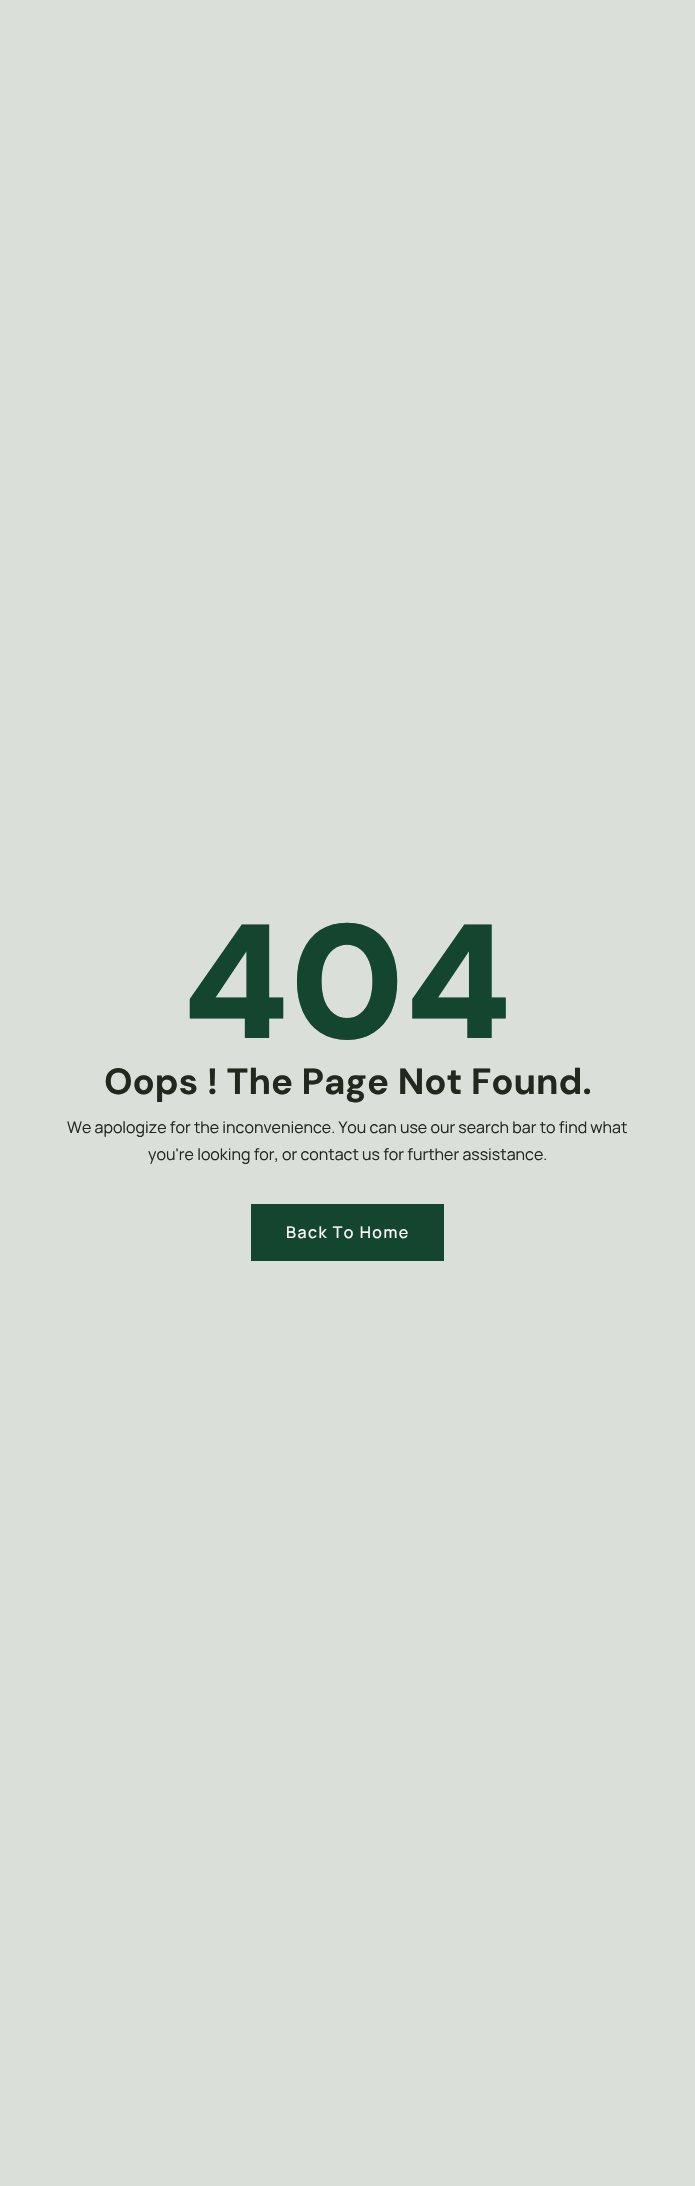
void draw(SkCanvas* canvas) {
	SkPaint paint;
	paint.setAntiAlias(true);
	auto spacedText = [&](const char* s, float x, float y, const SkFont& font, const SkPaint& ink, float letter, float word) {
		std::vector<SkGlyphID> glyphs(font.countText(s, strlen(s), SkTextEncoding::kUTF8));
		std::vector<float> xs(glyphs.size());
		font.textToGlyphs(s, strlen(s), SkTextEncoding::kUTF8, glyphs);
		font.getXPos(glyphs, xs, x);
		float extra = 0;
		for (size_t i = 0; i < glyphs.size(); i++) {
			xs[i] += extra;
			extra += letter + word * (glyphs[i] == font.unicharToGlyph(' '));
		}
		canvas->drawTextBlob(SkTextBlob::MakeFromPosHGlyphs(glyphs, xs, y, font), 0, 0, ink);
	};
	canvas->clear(0xffdadfd9);
	SkFont f1(fontMgr->matchFamilyStyle("DM Sans", SkFontStyle(900, SkFontStyle::kNormal_Width, SkFontStyle::kUpright_Slant)), 162);
	f1.setSubpixel(true);
	paint.setColor(0xff14452f);
	canvas->drawString("404", 182, 1038, f1, paint);
	SkFont f2(fontMgr->matchFamilyStyle("DM Sans", SkFontStyle::Bold()), 36.5);
	f2.setSubpixel(true);
	paint.setColor(0xff22281e);
	canvas->drawString("Oops ! The Page Not Found.", 104, 1094, f2, paint);
	SkFont f3(fontMgr->matchFamilyStyle("Manrope", SkFontStyle::Normal()), 16);
	f3.setSubpixel(true);
	canvas->drawString("We apologize for the inconvenience. You can use our search bar to find what", 67, 1133, f3, paint);
	canvas->drawString("you're looking for, or contact us for further assistance.", 148, 1160, f3, paint);
	paint.setColor(0xff14452f);
	canvas->drawRect(SkRect::MakeXYWH(251, 1204, 193, 57), paint);
	SkFont f4(fontMgr->matchFamilyStyle("Manrope", SkFontStyle(500, SkFontStyle::kNormal_Width, SkFontStyle::kUpright_Slant)), 16);
	f4.setSubpixel(true);
	paint.setColor(0xffffffff);
	spacedText("Back To Home", 286, 1238, f4, paint, 1.5, 0);
}
